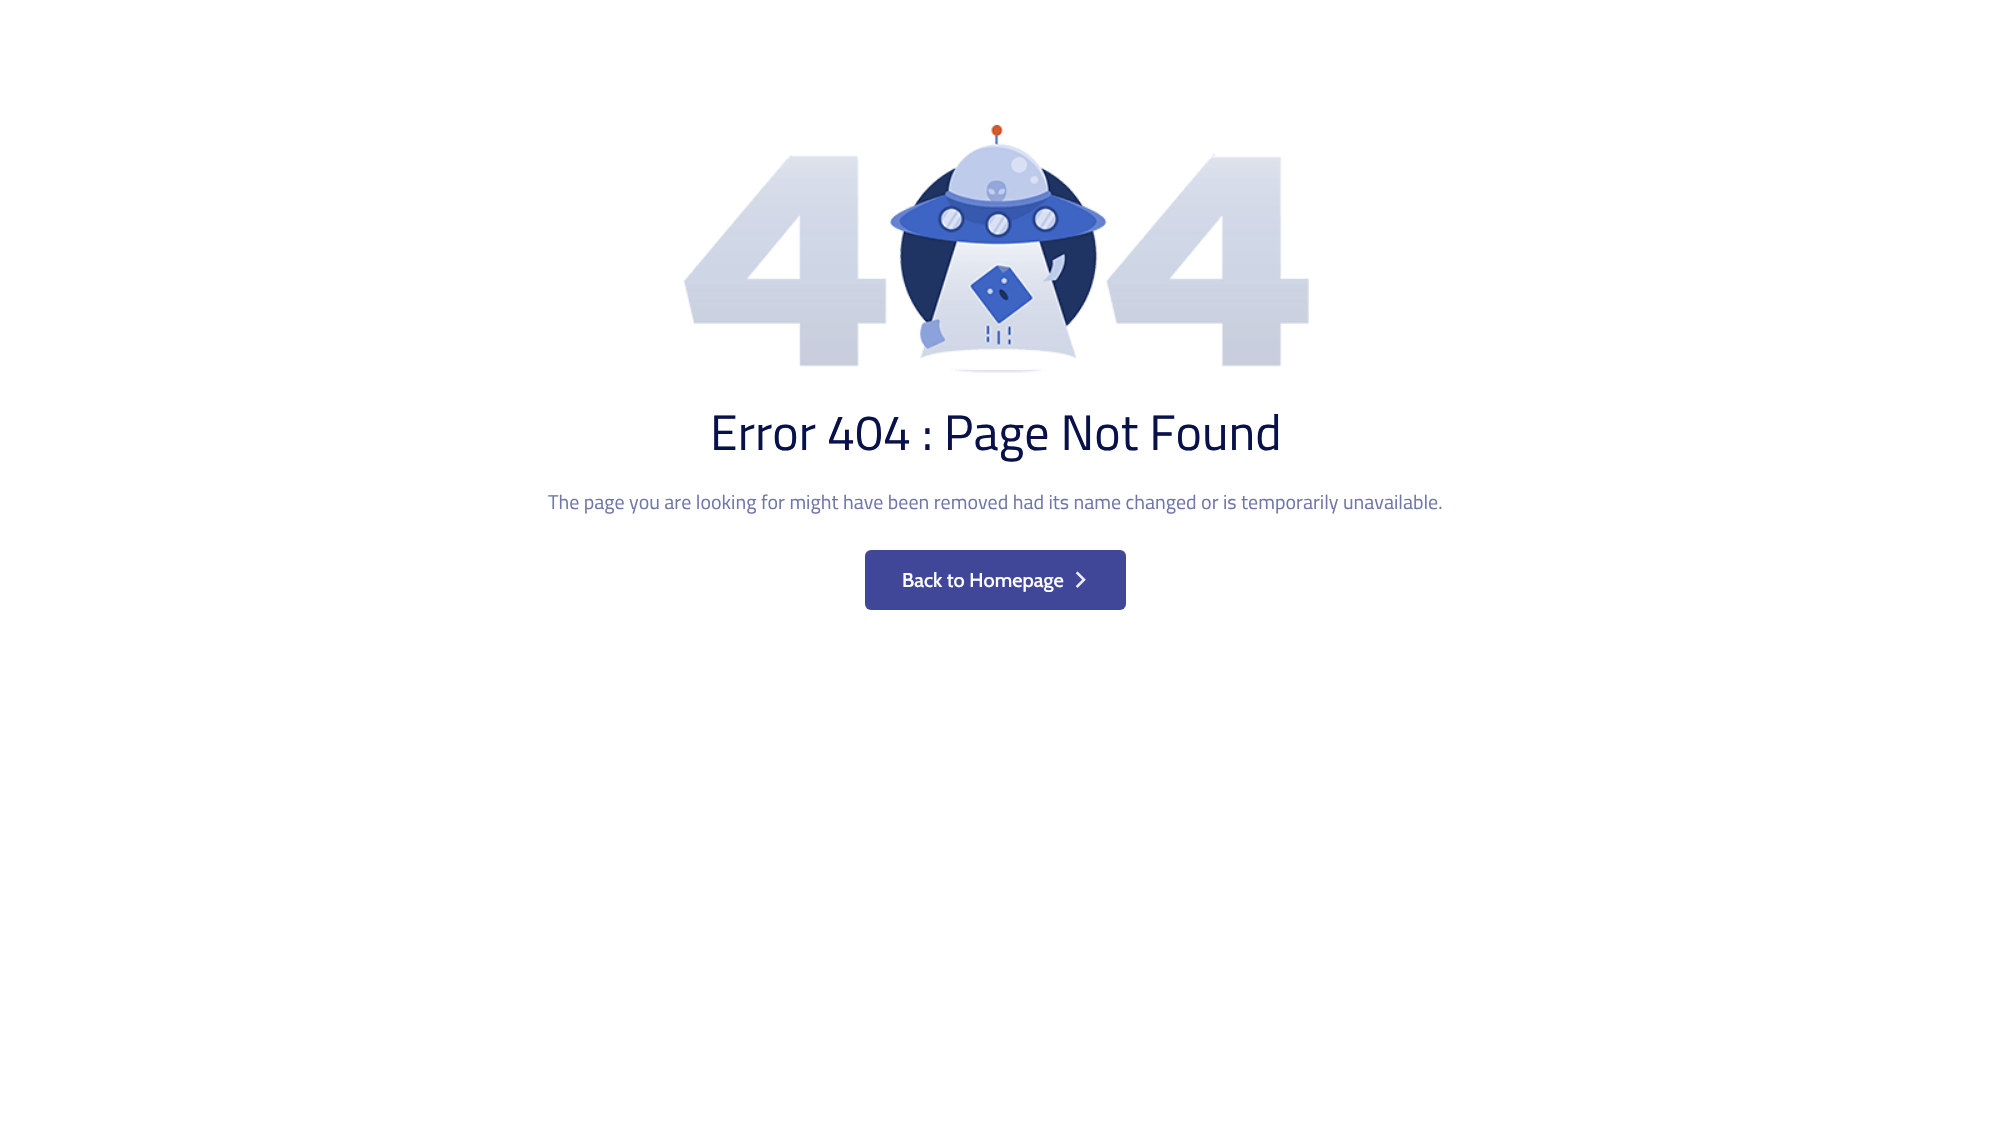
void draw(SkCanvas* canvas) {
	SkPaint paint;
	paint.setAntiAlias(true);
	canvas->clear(0xffffffff);
	canvas->drawImageRect(SkImages::DeferredFromEncodedData(SkData::MakeFromFileName("img1.png")), SkRect::MakeXYWH(683, 125, 626, 248), SkSamplingOptions());
	SkFont f1(fontMgr->matchFamilyStyle("Titillium Web", SkFontStyle::Normal()), 50);
	f1.setSubpixel(true);
	paint.setColor(0xff09114a);
	canvas->drawString("Error 404 : Page Not Found", 710, 450, f1, paint);
	SkFont f2(fontMgr->matchFamilyStyle("Titillium Web", SkFontStyle::Normal()), 20);
	f2.setSubpixel(true);
	paint.setColor(0xff6f76a8);
	canvas->drawString("The page you are looking for might have been removed had its name changed or is temporarily unavailable.", 548, 509, f2, paint);
	paint.setColor(0xff404798);
	canvas->drawRoundRect(SkRect::MakeXYWH(865, 550, 261, 60), 6, 6, paint);
	SkFont f3(fontMgr->matchFamilyStyle("Cabin", SkFontStyle(500, SkFontStyle::kNormal_Width, SkFontStyle::kUpright_Slant)), 20);
	f3.setSubpixel(true);
	paint.setColor(0xffffffff);
	canvas->drawString("Back to Homepage", 902, 587, f3, paint);
	canvas->drawImageRect(SkImages::DeferredFromEncodedData(SkData::MakeFromFileName("img2.png")), SkRect::MakeXYWH(1075, 571, 11, 17), SkSamplingOptions());
}
